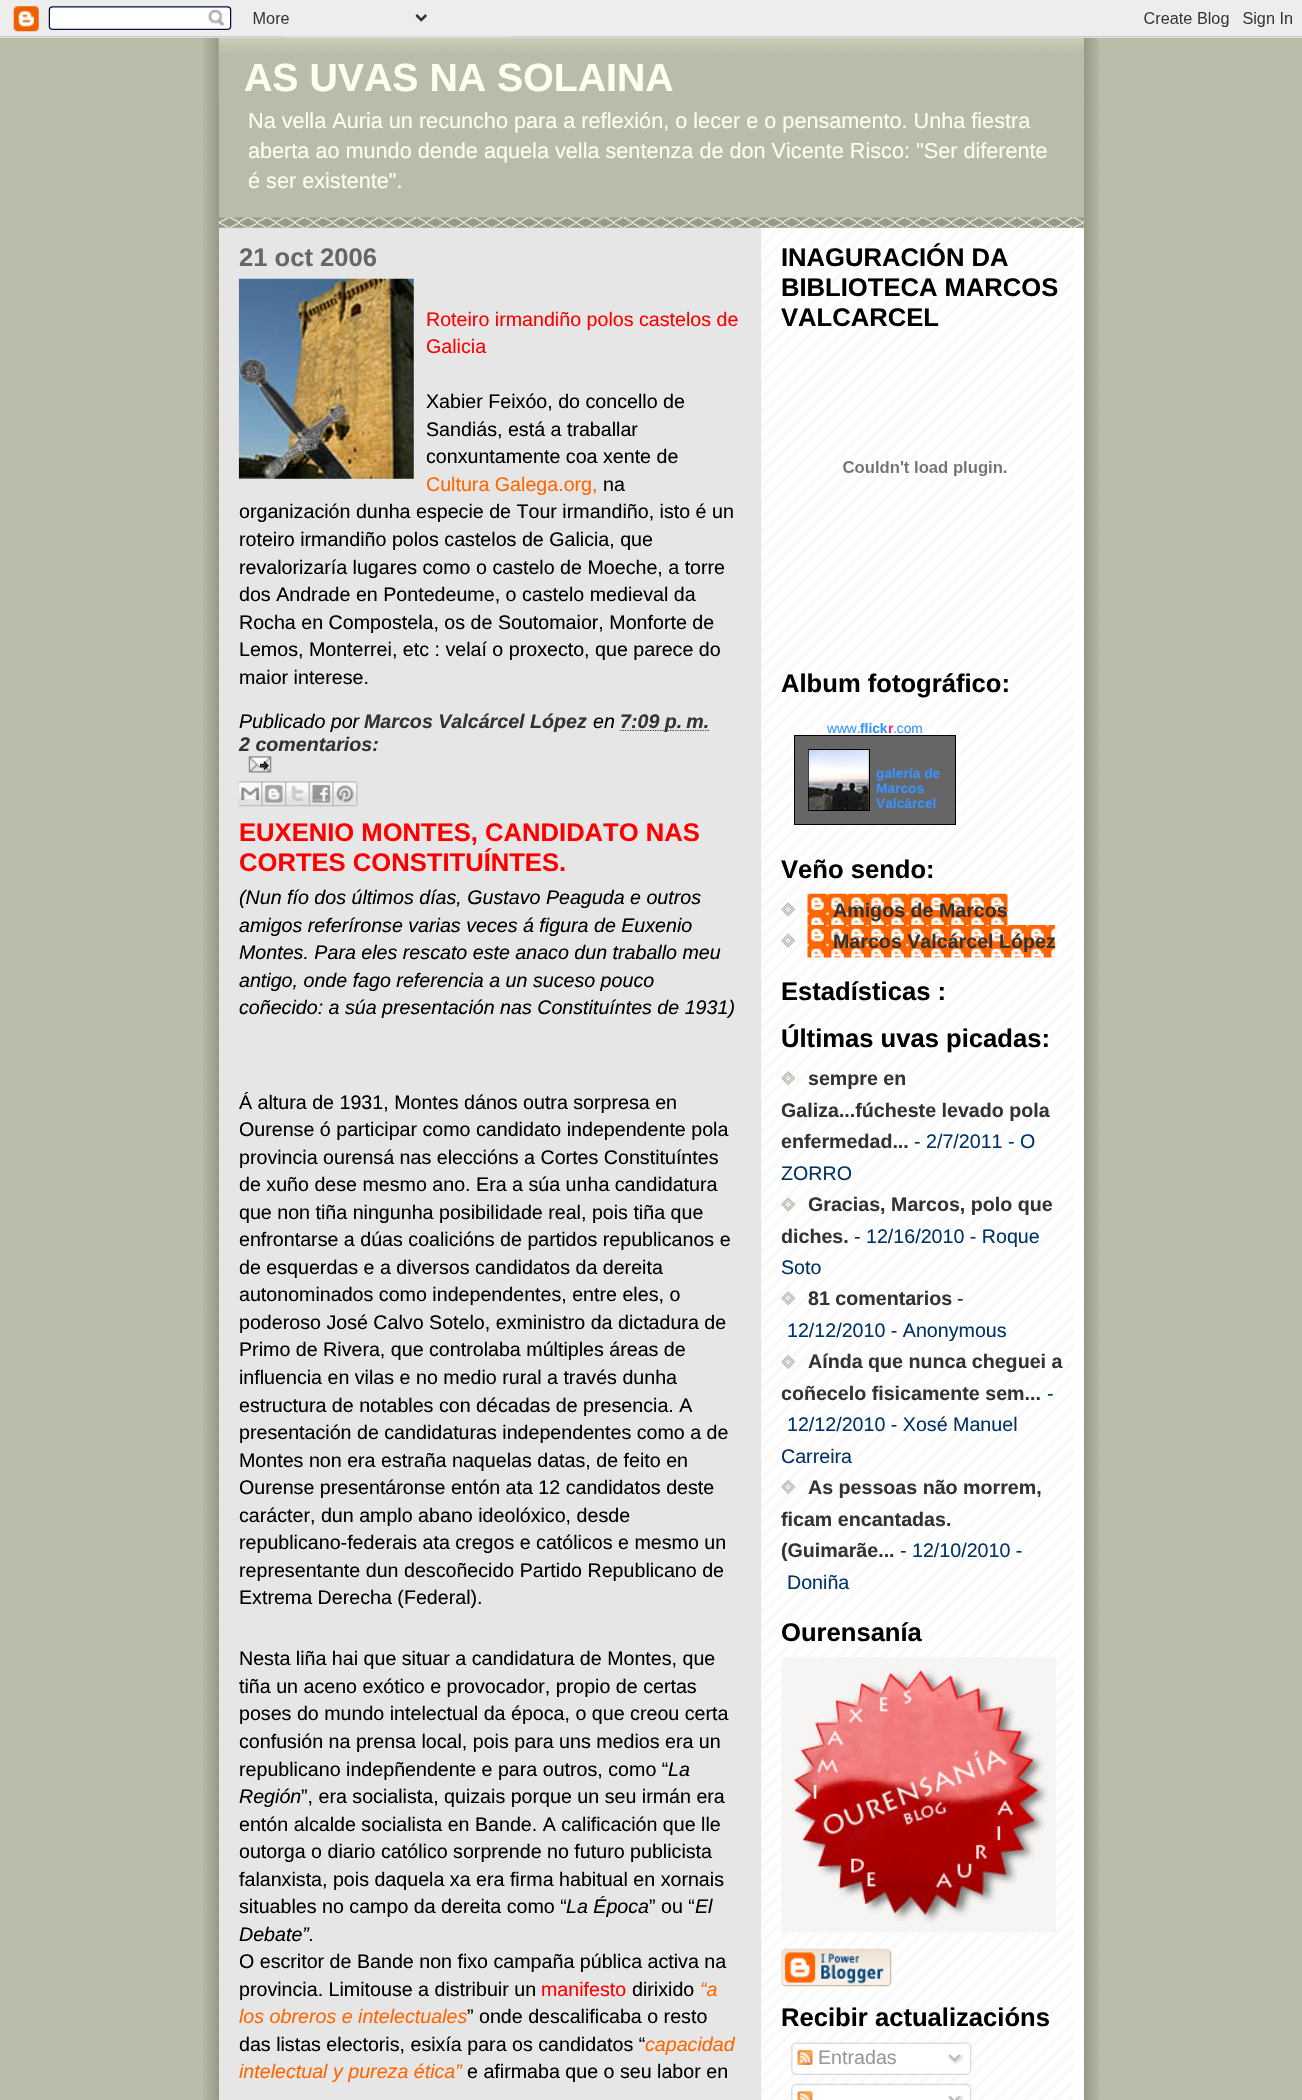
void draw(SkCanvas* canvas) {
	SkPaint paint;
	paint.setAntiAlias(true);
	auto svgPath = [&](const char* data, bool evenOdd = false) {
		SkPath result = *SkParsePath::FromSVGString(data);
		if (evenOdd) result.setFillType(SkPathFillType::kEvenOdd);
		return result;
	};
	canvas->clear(0xffbbbbaa);
	canvas->drawImageRect(SkImages::DeferredFromEncodedData(SkData::MakeFromFileName("img1.png")), SkRect::MakeXYWH(203, 36, 896, 2064), SkSamplingOptions());
	canvas->drawImageRect(SkImages::DeferredFromEncodedData(SkData::MakeFromFileName("img2.png")), SkRect::MakeXYWH(0, 0, 1302, 38), SkSamplingOptions());
	paint.setColor(0xffe6e6e6);
	canvas->drawRect(SkRect::MakeXYWH(219, 228, 865, 1872), paint);
	canvas->drawImageRect(SkImages::DeferredFromEncodedData(SkData::MakeFromFileName("img3.png")), SkRect::MakeXYWH(761, 228, 323, 1872), SkSamplingOptions());
	paint.setColor(0xffbbbbaa);
	canvas->drawRect(SkRect::MakeXYWH(219, 38, 865, 190), paint);
	canvas->drawImageRect(SkImages::DeferredFromEncodedData(SkData::MakeFromFileName("img4.png")), SkRect::MakeXYWH(218, 217, 866, 11), SkSamplingOptions());
	canvas->drawImageRect(SkImages::DeferredFromEncodedData(SkData::MakeFromFileName("img5.png")), SkRect::MakeXYWH(218, 38, 866, 63), SkSamplingOptions());
	SkFont f1(fontMgr->matchFamilyStyle("Liberation Sans", SkFontStyle::Bold()), 39.25);
	f1.setSubpixel(true);
	paint.setColor(0xffffffee);
	canvas->drawString("AS UVAS NA SOLAINA", 244, 91, f1, paint);
	SkFont f2(fontMgr->matchFamilyStyle("Liberation Sans", SkFontStyle::Normal()), 21.65);
	f2.setSubpixel(true);
	canvas->drawString("Na vella Auria un recuncho para a reflexión, o lecer e o pensamento. Unha fiestra", 248, 128, f2, paint);
	canvas->drawString("aberta ao mundo dende aquela vella sentenza de don Vicente Risco: \"Ser diferente", 248, 158, f2, paint);
	canvas->drawString("é ser existente\".", 248, 188, f2, paint);
	SkFont f3(fontMgr->matchFamilyStyle("Liberation Sans", SkFontStyle::Bold()), 25.6);
	f3.setSubpixel(true);
	paint.setColor(0xff666666);
	canvas->drawString("21 oct 2006", 239, 266, f3, paint);
	canvas->drawImageRect(SkImages::DeferredFromEncodedData(SkData::MakeFromFileName("img6.png")), SkRect::MakeXYWH(238, 278, 176, 201), SkSamplingOptions());
	SkFont f4(fontMgr->matchFamilyStyle("Liberation Sans", SkFontStyle::Normal()), 19.65);
	f4.setSubpixel(true);
	paint.setColor(0xffff0000);
	canvas->drawString("Roteiro irmandiño polos castelos de", 426, 326, f4, paint);
	canvas->drawString("Galicia", 426, 353, f4, paint);
	paint.setColor(0xff000000);
	canvas->drawString("Xabier Feixóo, do concello de", 426, 408, f4, paint);
	canvas->drawString("Sandiás, está a traballar", 426, 436, f4, paint);
	canvas->drawString("conxuntamente coa xente de", 426, 463, f4, paint);
	paint.setColor(0xffff6600);
	canvas->drawString("Cultura Galega.org,", 426, 491, f4, paint);
	paint.setColor(0xff000000);
	canvas->drawString("na", 603, 491, f4, paint);
	canvas->drawString("organización dunha especie de Tour irmandiño, isto é un", 239, 518, f4, paint);
	canvas->drawString("roteiro irmandiño polos castelos de Galicia, que", 239, 546, f4, paint);
	canvas->drawString("revalorizaría lugares como o castelo de Moeche, a torre", 239, 574, f4, paint);
	canvas->drawString("dos Andrade en Pontedeume, o castelo medieval da", 239, 601, f4, paint);
	canvas->drawString("Rocha en Compostela, os de Soutomaior, Monforte de", 239, 629, f4, paint);
	canvas->drawString("Lemos, Monterrei, etc : velaí o proxecto, que parece do", 239, 656, f4, paint);
	canvas->drawString("maior interese.", 239, 684, f4, paint);
	SkFont f5(fontMgr->matchFamilyStyle("Liberation Sans", SkFontStyle::Italic()), 19.65);
	f5.setSubpixel(true);
	canvas->drawString("Publicado por", 239, 728, f5, paint);
	SkFont f6(fontMgr->matchFamilyStyle("Liberation Sans", SkFontStyle::BoldItalic()), 19.65);
	f6.setSubpixel(true);
	paint.setColor(0xff333333);
	canvas->drawString("Marcos Valcárcel López", 364, 728, f6, paint);
	paint.setColor(0xff000000);
	canvas->drawString("en", 593, 728, f5, paint);
	paint.setStroke(true);
	paint.setStrokeWidth(1.2);
	paint.setColor(0xff333333);
	paint.setPathEffect(SkDashPathEffect::Make({{1.25f, 1.25f}}, 0));
	canvas->drawPath(svgPath("M620 730.5H709"), paint);
	paint.setPathEffect(nullptr);
	paint.setStroke(false);
	canvas->drawString("7:09 p. m.", 620, 728, f6, paint);
	canvas->drawString("2 comentarios:", 239, 751, f6, paint);
	canvas->drawImageRect(SkImages::DeferredFromEncodedData(SkData::MakeFromFileName("img7.png")), SkRect::MakeXYWH(248, 756, 24, 17), SkSamplingOptions());
	canvas->drawImageRect(SkImages::DeferredFromEncodedData(SkData::MakeFromFileName("img8.png")), SkRect::MakeXYWH(238, 781, 25, 26), SkSamplingOptions());
	canvas->drawImageRect(SkImages::DeferredFromEncodedData(SkData::MakeFromFileName("img9.png")), SkRect::MakeXYWH(261, 781, 26, 26), SkSamplingOptions());
	canvas->drawImageRect(SkImages::DeferredFromEncodedData(SkData::MakeFromFileName("img10.png")), SkRect::MakeXYWH(285, 781, 25, 26), SkSamplingOptions());
	canvas->drawImageRect(SkImages::DeferredFromEncodedData(SkData::MakeFromFileName("img11.png")), SkRect::MakeXYWH(308, 781, 26, 26), SkSamplingOptions());
	canvas->drawImageRect(SkImages::DeferredFromEncodedData(SkData::MakeFromFileName("img12.png")), SkRect::MakeXYWH(332, 781, 26, 26), SkSamplingOptions());
	paint.setColor(0xffff0000);
	canvas->drawString("EUXENIO MONTES, CANDIDATO NAS", 239, 841, f3, paint);
	canvas->drawString("CORTES CONSTITUÍNTES.", 239, 871, f3, paint);
	paint.setColor(0xff000000);
	canvas->drawString("(Nun fío dos últimos días, Gustavo Peaguda e outros", 239, 904, f5, paint);
	canvas->drawString("amigos referíronse varias veces á figura de Euxenio", 239, 932, f5, paint);
	canvas->drawString("Montes. Para eles rescato este anaco dun traballo meu", 239, 959, f5, paint);
	canvas->drawString("antigo, onde fago referencia a un suceso pouco", 239, 987, f5, paint);
	canvas->drawString("coñecido: a súa presentación nas Constituíntes de 1931)", 239, 1014, f5, paint);
	canvas->drawString("Á altura de 1931, Montes dános outra sorpresa en", 239, 1109, f4, paint);
	canvas->drawString("Ourense ó participar como candidato independente pola", 239, 1136, f4, paint);
	canvas->drawString("provincia ourensá nas eleccións a Cortes Constituíntes", 239, 1164, f4, paint);
	canvas->drawString("de xuño dese mesmo ano. Era a súa unha candidatura", 239, 1191, f4, paint);
	canvas->drawString("que non tiña ningunha posibilidade real, pois tiña que", 239, 1219, f4, paint);
	canvas->drawString("enfrontarse a dúas coalicións de partidos republicanos e", 239, 1246, f4, paint);
	canvas->drawString("de esquerdas e a diversos candidatos da dereita", 239, 1274, f4, paint);
	canvas->drawString("autonominados como independentes, entre eles, o", 239, 1301, f4, paint);
	canvas->drawString("poderoso José Calvo Sotelo, exministro da dictadura de", 239, 1329, f4, paint);
	canvas->drawString("Primo de Rivera, que controlaba múltiples áreas de", 239, 1356, f4, paint);
	canvas->drawString("influencia en vilas e no medio rural a través dunha", 239, 1384, f4, paint);
	canvas->drawString("estructura de notables con décadas de presencia. A", 239, 1412, f4, paint);
	canvas->drawString("presentación de candidaturas independentes como a de", 239, 1439, f4, paint);
	canvas->drawString("Montes non era estraña naquelas datas, de feito en", 239, 1467, f4, paint);
	canvas->drawString("Ourense presentáronse entón ata 12 candidatos deste", 239, 1494, f4, paint);
	canvas->drawString("carácter, dun amplo abano ideolóxico, desde", 239, 1522, f4, paint);
	canvas->drawString("republicano-federais ata cregos e católicos e mesmo un", 239, 1549, f4, paint);
	canvas->drawString("representante dun descoñecido Partido Republicano de", 239, 1577, f4, paint);
	canvas->drawString("Extrema Derecha (Federal).", 239, 1604, f4, paint);
	canvas->drawString("Nesta liña hai que situar a candidatura de Montes, que", 239, 1665, f4, paint);
	canvas->drawString("tiña un aceno exótico e provocador, propio de certas", 239, 1693, f4, paint);
	canvas->drawString("poses do mundo intelectual da época, o que creou certa", 239, 1720, f4, paint);
	canvas->drawString("confusión na prensa local, pois para uns medios era un", 239, 1748, f4, paint);
	canvas->drawString("republicano indepñendente e para outros, como “", 239, 1776, f4, paint);
	canvas->drawString("La", 668, 1776, f5, paint);
	canvas->drawString("Región", 239, 1803, f5, paint);
	canvas->drawString("”, era socialista, quizais porque un seu irmán era", 301, 1803, f4, paint);
	canvas->drawString("entón alcalde socialista en Bande. A calificación que lle", 239, 1831, f4, paint);
	canvas->drawString("outorga o diario católico sorprende no futuro publicista", 239, 1858, f4, paint);
	canvas->drawString("falanxista, pois daquela xa era firma habitual en xornais", 239, 1886, f4, paint);
	canvas->drawString("situables no campo da dereita como “", 239, 1913, f4, paint);
	canvas->drawString("La Época", 566, 1913, f5, paint);
	canvas->drawString("” ou “", 649, 1913, f4, paint);
	canvas->drawString("El", 695, 1913, f5, paint);
	canvas->drawString("Debate”.", 239, 1941, f5, paint);
	canvas->drawString("O escritor de Bande non fixo campaña pública activa na", 239, 1968, f4, paint);
	canvas->drawString("provincia. Limitouse a distribuir un", 239, 1996, f4, paint);
	paint.setColor(0xffff0000);
	canvas->drawString("manifesto", 541, 1996, f4, paint);
	paint.setColor(0xff000000);
	canvas->drawString("dirixido", 632, 1996, f4, paint);
	paint.setColor(0xffff6600);
	canvas->drawString("“a", 700, 1996, f5, paint);
	canvas->drawString("los obreros e intelectuales", 239, 2023, f5, paint);
	paint.setColor(0xff000000);
	canvas->drawString("” onde descalificaba o resto", 467, 2023, f4, paint);
	canvas->drawString("das listas electoris, esixía para os candidatos “", 239, 2051, f4, paint);
	paint.setColor(0xffff6600);
	canvas->drawString("capacidad", 645, 2051, f5, paint);
	canvas->drawString("intelectual y pureza ética”", 239, 2078, f5, paint);
	paint.setColor(0xff000000);
	canvas->drawString("e afirmaba que o seu labor en", 467, 2078, f4, paint);
	canvas->drawString("INAGURACIÓN DA", 781, 266, f3, paint);
	canvas->drawString("BIBLIOTECA MARCOS", 781, 296, f3, paint);
	canvas->drawString("VALCARCEL", 781, 326, f3, paint);
	canvas->drawImageRect(SkImages::DeferredFromEncodedData(SkData::MakeFromFileName("img13.png")), SkRect::MakeXYWH(843, 461, 164, 15), SkSamplingOptions());
	canvas->drawString("Album fotográfico:", 781, 692, f3, paint);
	SkFont f7(fontMgr->matchFamilyStyle("Liberation Sans", SkFontStyle::Normal()), 13.75);
	f7.setSubpixel(true);
	paint.setColor(0xff3993ff);
	canvas->drawString("www.", 827, 733, f7, paint);
	SkFont f8(fontMgr->matchFamilyStyle("Liberation Sans", SkFontStyle::Bold()), 13.75);
	f8.setSubpixel(true);
	canvas->drawString("flick", 860, 733, f8, paint);
	paint.setColor(0xffff1c92);
	canvas->drawString("r", 888, 733, f8, paint);
	paint.setColor(0xff3993ff);
	canvas->drawString(".com", 893, 733, f7, paint);
	paint.setColor(0xff666666);
	canvas->drawRect(SkRect::MakeXYWH(794.5, 735.5, 161, 89), paint);
	paint.setStroke(true);
	paint.setStrokeWidth(1);
	paint.setColor(0xff000000);
	canvas->drawRect(SkRect::MakeXYWH(794.5, 735.5, 161, 89), paint);
	canvas->drawRect(SkRect::MakeXYWH(808.5, 749.5, 61, 61), paint);
	canvas->drawImageRect(SkImages::DeferredFromEncodedData(SkData::MakeFromFileName("img14.png")), SkRect::MakeXYWH(808, 750, 61, 60), SkSamplingOptions());
	paint.setStroke(false);
	paint.setColor(0xff3993ff);
	canvas->drawString("galería de", 876, 778, f8, paint);
	canvas->drawString("Marcos", 876, 793, f8, paint);
	canvas->drawString("Valcárcel", 876, 808, f8, paint);
	paint.setColor(0xff000000);
	canvas->drawString("Veño sendo:", 781, 878, f3, paint);
	canvas->drawImageRect(SkImages::DeferredFromEncodedData(SkData::MakeFromFileName("img15.png")), SkRect::MakeXYWH(781, 902, 15, 15), SkSamplingOptions());
	canvas->drawImageRect(SkImages::DeferredFromEncodedData(SkData::MakeFromFileName("img16.png")), SkRect::MakeXYWH(807, 893, 201, 32), SkSamplingOptions());
	SkFont f9(fontMgr->matchFamilyStyle("Liberation Sans", SkFontStyle::Bold()), 19.65);
	f9.setSubpixel(true);
	paint.setColor(0xff333333);
	canvas->drawString("Amigos de Marcos", 833, 917, f9, paint);
	canvas->drawImageRect(SkImages::DeferredFromEncodedData(SkData::MakeFromFileName("img17.png")), SkRect::MakeXYWH(781, 933, 15, 15), SkSamplingOptions());
	canvas->drawImageRect(SkImages::DeferredFromEncodedData(SkData::MakeFromFileName("img18.png")), SkRect::MakeXYWH(807, 925, 248, 33), SkSamplingOptions());
	canvas->drawString("Marcos Valcárcel López", 833, 948, f9, paint);
	paint.setColor(0xff000000);
	canvas->drawString("Estadísticas :", 781, 1000, f3, paint);
	canvas->drawString("Últimas uvas picadas:", 781, 1047, f3, paint);
	canvas->drawImageRect(SkImages::DeferredFromEncodedData(SkData::MakeFromFileName("img19.png")), SkRect::MakeXYWH(781, 1071, 15, 14), SkSamplingOptions());
	paint.setColor(0xff333333);
	canvas->drawString("sempre en", 808, 1085, f9, paint);
	canvas->drawString("Galiza...fúcheste levado pola", 781, 1117, f9, paint);
	canvas->drawString("enfermedad...", 781, 1148, f9, paint);
	paint.setColor(0xff003366);
	canvas->drawString("- 2/7/2011 - O", 914, 1148, f4, paint);
	canvas->drawString("ZORRO", 781, 1180, f4, paint);
	canvas->drawImageRect(SkImages::DeferredFromEncodedData(SkData::MakeFromFileName("img20.png")), SkRect::MakeXYWH(781, 1197, 15, 15), SkSamplingOptions());
	paint.setColor(0xff333333);
	canvas->drawString("Gracias, Marcos, polo que", 808, 1211, f9, paint);
	canvas->drawString("diches.", 781, 1243, f9, paint);
	paint.setColor(0xff003366);
	canvas->drawString("- 12/16/2010 - Roque", 854, 1243, f4, paint);
	canvas->drawString("Soto", 781, 1274, f4, paint);
	canvas->drawImageRect(SkImages::DeferredFromEncodedData(SkData::MakeFromFileName("img21.png")), SkRect::MakeXYWH(781, 1291, 15, 14), SkSamplingOptions());
	paint.setColor(0xff333333);
	canvas->drawString("81 comentarios", 808, 1305, f9, paint);
	paint.setColor(0xff003366);
	canvas->drawString("-", 957, 1305, f4, paint);
	canvas->drawString("12/12/2010 - Anonymous", 787, 1337, f4, paint);
	canvas->drawImageRect(SkImages::DeferredFromEncodedData(SkData::MakeFromFileName("img22.png")), SkRect::MakeXYWH(781, 1354, 15, 15), SkSamplingOptions());
	paint.setColor(0xff333333);
	canvas->drawString("Aínda que nunca cheguei a", 808, 1368, f9, paint);
	canvas->drawString("coñecelo fisicamente sem...", 781, 1400, f9, paint);
	paint.setColor(0xff003366);
	canvas->drawString("-", 1047, 1400, f4, paint);
	canvas->drawString("12/12/2010 - Xosé Manuel", 787, 1431, f4, paint);
	canvas->drawString("Carreira", 781, 1463, f4, paint);
	canvas->drawImageRect(SkImages::DeferredFromEncodedData(SkData::MakeFromFileName("img23.png")), SkRect::MakeXYWH(781, 1479, 15, 15), SkSamplingOptions());
	paint.setColor(0xff333333);
	canvas->drawString("As pessoas não morrem,", 808, 1494, f9, paint);
	canvas->drawString("ficam encantadas.", 781, 1526, f9, paint);
	canvas->drawString("(Guimarãe...", 781, 1557, f9, paint);
	paint.setColor(0xff003366);
	canvas->drawString("- 12/10/2010 -", 900, 1557, f4, paint);
	canvas->drawString("Doniña", 787, 1589, f4, paint);
	paint.setColor(0xff000000);
	canvas->drawString("Ourensanía", 781, 1641, f3, paint);
	canvas->drawImageRect(SkImages::DeferredFromEncodedData(SkData::MakeFromFileName("img24.png")), SkRect::MakeXYWH(781, 1657, 275, 276), SkSamplingOptions());
	canvas->drawImageRect(SkImages::DeferredFromEncodedData(SkData::MakeFromFileName("img25.png")), SkRect::MakeXYWH(781, 1948, 111, 39), SkSamplingOptions());
	canvas->drawString("Recibir actualizacións", 781, 2026, f3, paint);
	canvas->drawImageRect(SkImages::DeferredFromEncodedData(SkData::MakeFromFileName("img26.png")), SkRect::MakeXYWH(791, 2042, 181, 30), SkSamplingOptions());
	canvas->drawImageRect(SkImages::DeferredFromEncodedData(SkData::MakeFromFileName("img27.png")), SkRect::MakeXYWH(797, 2050, 16, 15), SkSamplingOptions());
	paint.setColor(0xff999999);
	canvas->drawString("Entradas", 818, 2064, f4, paint);
	canvas->drawImageRect(SkImages::DeferredFromEncodedData(SkData::MakeFromFileName("img28.png")), SkRect::MakeXYWH(947, 2054, 17, 11), SkSamplingOptions());
	canvas->drawImageRect(SkImages::DeferredFromEncodedData(SkData::MakeFromFileName("img29.png")), SkRect::MakeXYWH(791, 2071, 180, 4), SkSamplingOptions());
	canvas->drawImageRect(SkImages::DeferredFromEncodedData(SkData::MakeFromFileName("img30.png")), SkRect::MakeXYWH(791, 2083, 181, 17), SkSamplingOptions());
	canvas->drawImageRect(SkImages::DeferredFromEncodedData(SkData::MakeFromFileName("img31.png")), SkRect::MakeXYWH(797, 2091, 16, 9), SkSamplingOptions());
	canvas->drawImageRect(SkImages::DeferredFromEncodedData(SkData::MakeFromFileName("img32.png")), SkRect::MakeXYWH(947, 2095, 17, 5), SkSamplingOptions());
}
